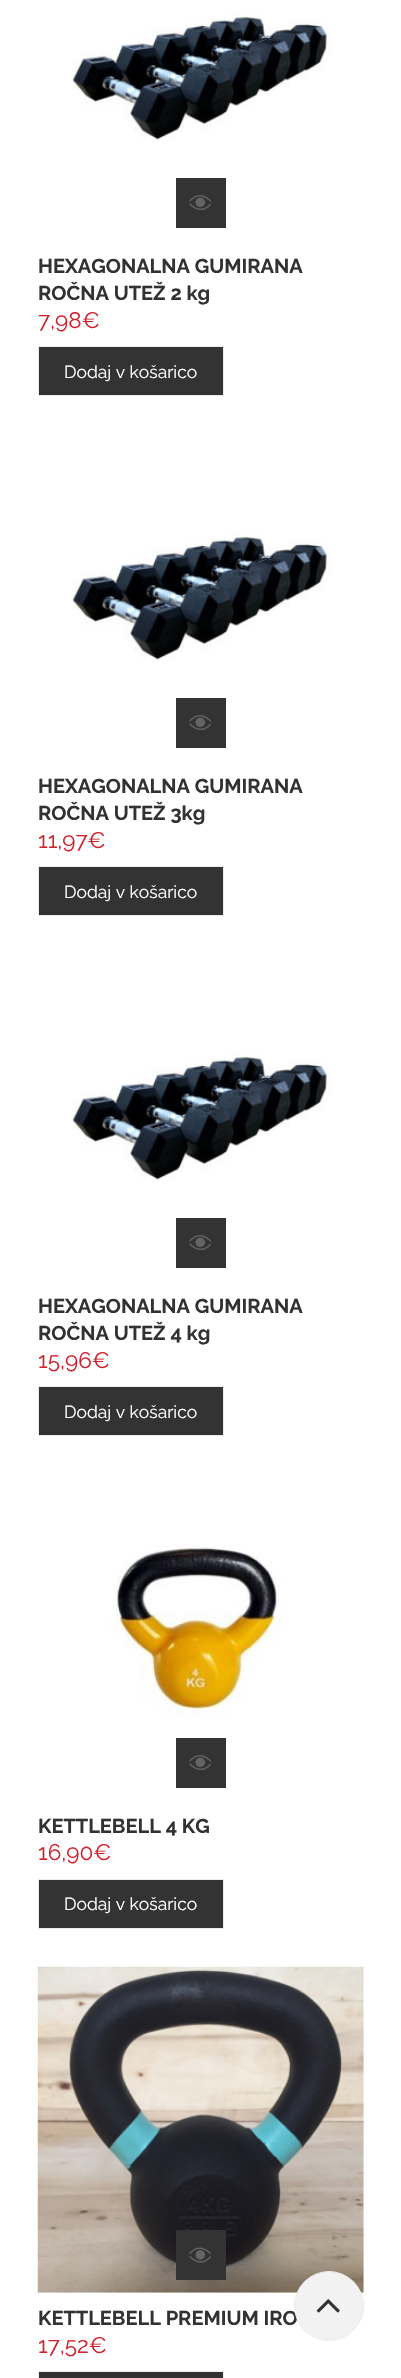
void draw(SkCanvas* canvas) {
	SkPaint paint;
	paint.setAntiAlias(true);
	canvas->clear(0xffffffff);
	canvas->drawImageRect(SkImages::DeferredFromEncodedData(SkData::MakeFromFileName("img1.png")), SkRect::MakeXYWH(72, 11, 260, 129), SkSamplingOptions());
	paint.setColor(0xff333333);
	canvas->drawRect(SkRect::MakeXYWH(176, 178, 50, 50), paint);
	canvas->drawImageRect(SkImages::DeferredFromEncodedData(SkData::MakeFromFileName("img2.png")), SkRect::MakeXYWH(189, 195, 22, 15), SkSamplingOptions());
	SkFont f1(fontMgr->matchFamilyStyle("Raleway", SkFontStyle::Bold()), 20);
	f1.setSubpixel(true);
	paint.setColor(0xff323232);
	canvas->drawString("HEXAGONALNA GUMIRANA", 38, 273, f1, paint);
	canvas->drawString("ROČNA UTEŽ 2 kg", 38, 300, f1, paint);
	SkFont f2(fontMgr->matchFamilyStyle("Raleway", SkFontStyle::Normal()), 22.5);
	f2.setSubpixel(true);
	paint.setColor(0xffd1212b);
	canvas->drawString("7,98€", 38, 328, f2, paint);
	paint.setColor(0xff333333);
	canvas->drawRect(SkRect::MakeXYWH(38.5, 346.5, 185, 49), paint);
	paint.setStroke(true);
	paint.setStrokeWidth(1);
	paint.setColor(0xffebebeb);
	canvas->drawRect(SkRect::MakeXYWH(38.5, 346.5, 185, 49), paint);
	SkFont f3(fontMgr->matchFamilyStyle("Raleway", SkFontStyle::Normal()), 17.5);
	f3.setSubpixel(true);
	paint.setStroke(false);
	paint.setColor(0xffffffff);
	canvas->drawString("Dodaj v košarico", 64, 378, f3, paint);
	canvas->drawImageRect(SkImages::DeferredFromEncodedData(SkData::MakeFromFileName("img1.png")), SkRect::MakeXYWH(72, 531, 260, 129), SkSamplingOptions());
	paint.setColor(0xff333333);
	canvas->drawRect(SkRect::MakeXYWH(176, 698, 50, 50), paint);
	canvas->drawImageRect(SkImages::DeferredFromEncodedData(SkData::MakeFromFileName("img2.png")), SkRect::MakeXYWH(189, 715, 22, 15), SkSamplingOptions());
	paint.setColor(0xff323232);
	canvas->drawString("HEXAGONALNA GUMIRANA", 38, 793, f1, paint);
	canvas->drawString("ROČNA UTEŽ 3kg", 38, 820, f1, paint);
	paint.setColor(0xffd1212b);
	canvas->drawString("11,97€", 38, 848, f2, paint);
	paint.setColor(0xff333333);
	canvas->drawRect(SkRect::MakeXYWH(38.5, 866.5, 185, 49), paint);
	paint.setStroke(true);
	paint.setColor(0xffebebeb);
	canvas->drawRect(SkRect::MakeXYWH(38.5, 866.5, 185, 49), paint);
	paint.setStroke(false);
	paint.setColor(0xffffffff);
	canvas->drawString("Dodaj v košarico", 64, 898, f3, paint);
	canvas->drawImageRect(SkImages::DeferredFromEncodedData(SkData::MakeFromFileName("img1.png")), SkRect::MakeXYWH(72, 1051, 260, 129), SkSamplingOptions());
	paint.setColor(0xff333333);
	canvas->drawRect(SkRect::MakeXYWH(176, 1218, 50, 50), paint);
	canvas->drawImageRect(SkImages::DeferredFromEncodedData(SkData::MakeFromFileName("img2.png")), SkRect::MakeXYWH(189, 1235, 22, 15), SkSamplingOptions());
	paint.setColor(0xff323232);
	canvas->drawString("HEXAGONALNA GUMIRANA", 38, 1313, f1, paint);
	canvas->drawString("ROČNA UTEŽ 4 kg", 38, 1340, f1, paint);
	paint.setColor(0xffd1212b);
	canvas->drawString("15,96€", 38, 1368, f2, paint);
	paint.setColor(0xff333333);
	canvas->drawRect(SkRect::MakeXYWH(38.5, 1386.5, 185, 49), paint);
	paint.setStroke(true);
	paint.setColor(0xffebebeb);
	canvas->drawRect(SkRect::MakeXYWH(38.5, 1386.5, 185, 49), paint);
	paint.setStroke(false);
	paint.setColor(0xffffffff);
	canvas->drawString("Dodaj v košarico", 64, 1418, f3, paint);
	canvas->drawImageRect(SkImages::DeferredFromEncodedData(SkData::MakeFromFileName("img3.png")), SkRect::MakeXYWH(110, 1544, 172, 174), SkSamplingOptions());
	paint.setColor(0xff333333);
	canvas->drawRect(SkRect::MakeXYWH(176, 1738, 50, 50), paint);
	canvas->drawImageRect(SkImages::DeferredFromEncodedData(SkData::MakeFromFileName("img2.png")), SkRect::MakeXYWH(189, 1755, 22, 15), SkSamplingOptions());
	paint.setColor(0xff323232);
	canvas->drawString("KETTLEBELL 4 KG", 38, 1833, f1, paint);
	paint.setColor(0xffd1212b);
	canvas->drawString("16,90€", 38, 1860, f2, paint);
	paint.setColor(0xff333333);
	canvas->drawRect(SkRect::MakeXYWH(38.5, 1879.5, 185, 49), paint);
	paint.setStroke(true);
	paint.setColor(0xffebebeb);
	canvas->drawRect(SkRect::MakeXYWH(38.5, 1879.5, 185, 49), paint);
	paint.setStroke(false);
	paint.setColor(0xffffffff);
	canvas->drawString("Dodaj v košarico", 64, 1910, f3, paint);
	canvas->drawImageRect(SkImages::DeferredFromEncodedData(SkData::MakeFromFileName("img4.png")), SkRect::MakeXYWH(37, 1966, 327, 327), SkSamplingOptions());
	paint.setColor(0xff333333);
	canvas->drawRect(SkRect::MakeXYWH(176, 2230, 50, 50), paint);
	canvas->drawImageRect(SkImages::DeferredFromEncodedData(SkData::MakeFromFileName("img5.png")), SkRect::MakeXYWH(189, 2247, 22, 16), SkSamplingOptions());
	paint.setColor(0xff323232);
	canvas->drawString("KETTLEBELL PREMIUM IRO", 38, 2325, f1, paint);
	paint.setColor(0xffd1212b);
	canvas->drawString("17,52€", 38, 2353, f2, paint);
	paint.setColor(0xff333333);
	canvas->drawRect(SkRect::MakeXYWH(38.5, 2371.5, 185, 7), paint);
	paint.setStroke(true);
	paint.setColor(0xffebebeb);
	canvas->drawRect(SkRect::MakeXYWH(38.5, 2371.5, 185, 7), paint);
	paint.setStroke(false);
	paint.setColor(0xfff2f2f2);
	canvas->drawCircle(329, 2306, 34.5, paint);
	paint.setStroke(true);
	paint.setColor(0xffebebeb);
	canvas->drawCircle(329, 2306, 34.5, paint);
	canvas->drawImageRect(SkImages::DeferredFromEncodedData(SkData::MakeFromFileName("img6.png")), SkRect::MakeXYWH(316, 2299, 24, 14), SkSamplingOptions());
}
